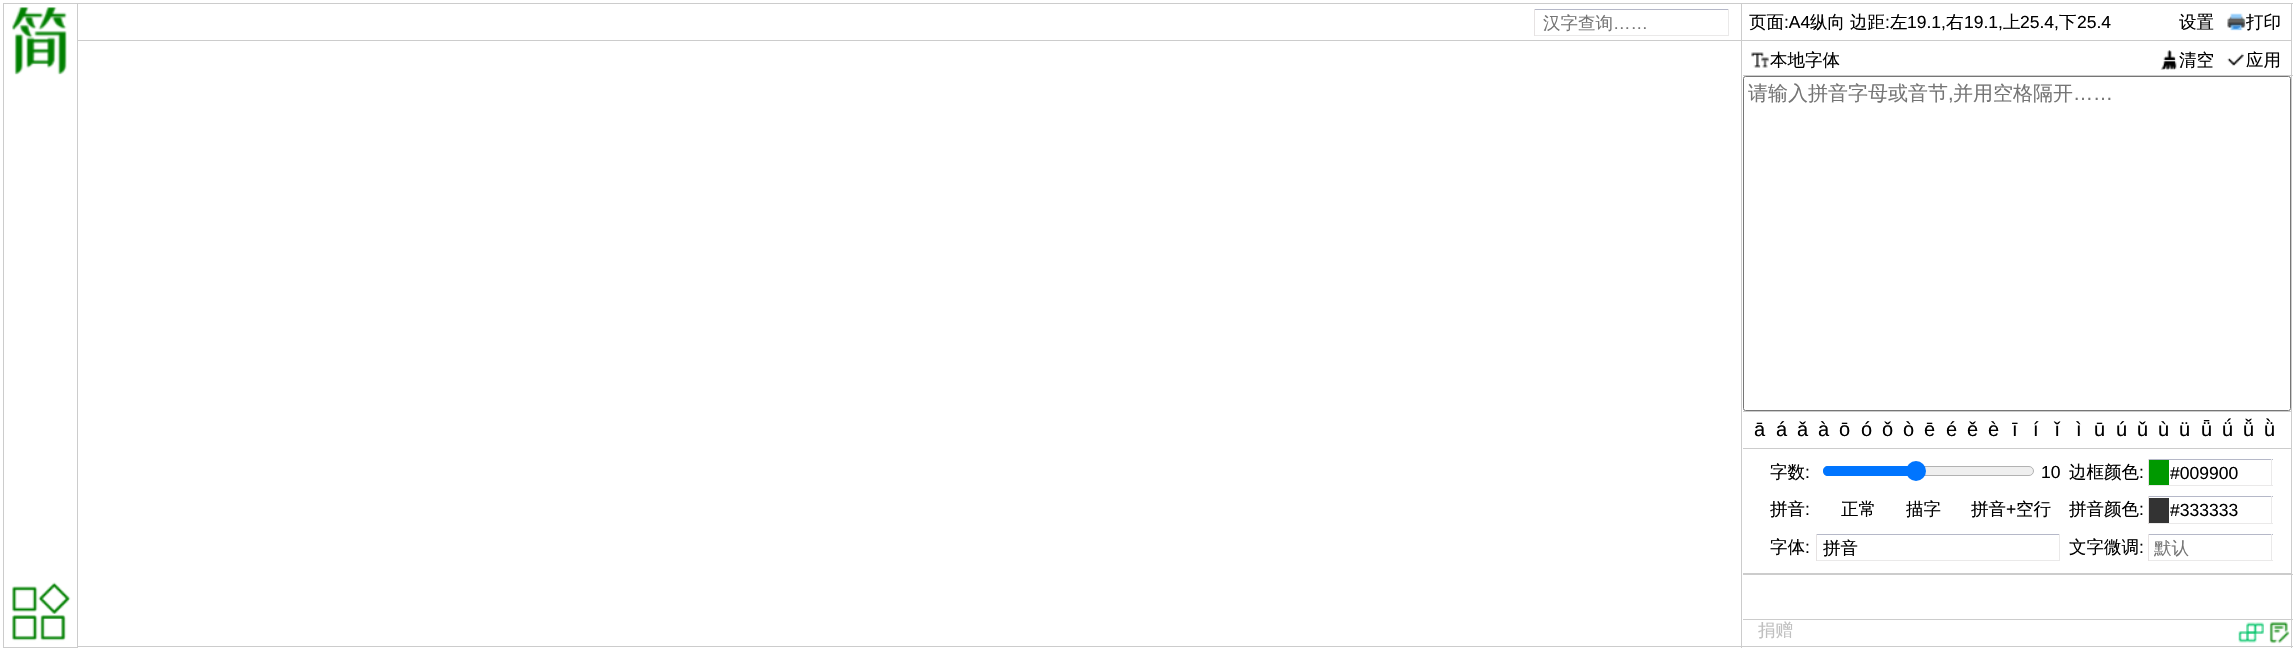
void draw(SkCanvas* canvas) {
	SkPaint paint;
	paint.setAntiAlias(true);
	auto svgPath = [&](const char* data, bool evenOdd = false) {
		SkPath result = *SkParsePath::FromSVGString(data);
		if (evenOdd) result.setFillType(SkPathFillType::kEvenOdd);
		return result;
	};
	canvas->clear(0xffffffff);
	paint.setStroke(true);
	paint.setStrokeWidth(1);
	paint.setColor(0xffcccccc);
	canvas->drawRect(SkRect::MakeXYWH(3.5, 3.5, 74, 644), paint);
	canvas->drawImageRect(SkImages::DeferredFromEncodedData(SkData::MakeFromFileName("img1.png")), SkRect::MakeXYWH(12, 7, 55, 68), SkSamplingOptions());
	canvas->drawImageRect(SkImages::DeferredFromEncodedData(SkData::MakeFromFileName("img2.png")), SkRect::MakeXYWH(11, 582, 60, 59), SkSamplingOptions());
	paint.setStroke(false);
	canvas->drawRect(SkRect::MakeXYWH(78, 3, 2215, 1), paint);
	canvas->drawRect(SkRect::MakeXYWH(1741, 3, 1, 37), paint);
	paint.setColor(0xffb5b8c8);
	canvas->drawRect(SkRect::MakeXYWH(1534, 9, 195, 1), paint);
	paint.setColor(0xffeae9e9);
	canvas->drawRect(SkRect::MakeXYWH(1728, 9, 1, 27), paint);
	canvas->drawRect(SkRect::MakeXYWH(1534, 35, 195, 1), paint);
	paint.setColor(0xffe6e2e2);
	canvas->drawRect(SkRect::MakeXYWH(1534, 9, 1, 27), paint);
	SkFont f1(fontMgr->matchFamilyStyle("WenQuanYi Zen Hei", SkFontStyle(500, SkFontStyle::kNormal_Width, SkFontStyle::kUpright_Slant)), 17.5);
	f1.setSubpixel(true);
	paint.setColor(0xff757575);
	canvas->drawString("汉字查询", 1543, 29, f1, paint);
	SkFont f2(fontMgr->matchFamilyStyle("Liberation Sans", SkFontStyle::Normal()), 17.5);
	f2.setSubpixel(true);
	canvas->drawString("……", 1613, 29, f2, paint);
	paint.setColor(0xffcccccc);
	canvas->drawRect(SkRect::MakeXYWH(2291, 3, 1, 75), paint);
	paint.setColor(0xff000000);
	canvas->drawString("页面", 1749, 28, f1, paint);
	canvas->drawString(":A4", 1784, 28, f2, paint);
	canvas->drawString("纵向", 1810, 28, f1, paint);
	canvas->drawString("边距", 1850, 28, f1, paint);
	canvas->drawString(":", 1885, 28, f2, paint);
	canvas->drawString("左", 1890, 28, f1, paint);
	canvas->drawString("19.1,", 1907, 28, f2, paint);
	canvas->drawString("右", 1946, 28, f1, paint);
	canvas->drawString("19.1,", 1964, 28, f2, paint);
	canvas->drawString("上", 2003, 28, f1, paint);
	canvas->drawString("25.4,", 2020, 28, f2, paint);
	canvas->drawString("下", 2059, 28, f1, paint);
	canvas->drawString("25.4", 2077, 28, f2, paint);
	canvas->drawString("设置", 2179, 28, f1, paint);
	canvas->drawImageRect(SkImages::DeferredFromEncodedData(SkData::MakeFromFileName("img3.png")), SkRect::MakeXYWH(2227, 13, 19, 18), SkSamplingOptions());
	canvas->drawString("打印", 2246, 28, f1, paint);
	canvas->drawImageRect(SkImages::DeferredFromEncodedData(SkData::MakeFromFileName("img4.png")), SkRect::MakeXYWH(1751, 52, 18, 16), SkSamplingOptions());
	canvas->drawString("本地字体", 1770, 66, f1, paint);
	canvas->drawImageRect(SkImages::DeferredFromEncodedData(SkData::MakeFromFileName("img5.png")), SkRect::MakeXYWH(2160, 50, 17, 20), SkSamplingOptions());
	canvas->drawString("清空", 2179, 66, f1, paint);
	canvas->drawImageRect(SkImages::DeferredFromEncodedData(SkData::MakeFromFileName("img6.png")), SkRect::MakeXYWH(2227, 53, 17, 13), SkSamplingOptions());
	canvas->drawString("应用", 2246, 66, f1, paint);
	paint.setColor(0xffcccccc);
	canvas->drawRect(SkRect::MakeXYWH(78, 40, 2213, 1), paint);
	canvas->drawRect(SkRect::MakeXYWH(1741, 40, 1, 608), paint);
	canvas->drawRect(SkRect::MakeXYWH(78, 646, 1665, 1), paint);
	canvas->drawRect(SkRect::MakeXYWH(1743, 75, 550, 1), paint);
	canvas->drawRect(SkRect::MakeXYWH(2291, 75, 1, 500), paint);
	canvas->drawRect(SkRect::MakeXYWH(1743, 574, 550, 1), paint);
	paint.setStroke(true);
	paint.setColor(0xff767676);
	canvas->drawRoundRect(SkRect::MakeXYWH(1743.5, 76.5, 547, 334), 2, 2, paint);
	SkFont f3(fontMgr->matchFamilyStyle("WenQuanYi Zen Hei", SkFontStyle(500, SkFontStyle::kNormal_Width, SkFontStyle::kUpright_Slant)), 20);
	f3.setSubpixel(true);
	paint.setStroke(false);
	paint.setColor(0xff757575);
	canvas->drawString("请输入拼音字母或音节", 1748, 100, f3, paint);
	SkFont f4(fontMgr->matchFamilyStyle("Liberation Sans", SkFontStyle::Normal()), 20);
	f4.setSubpixel(true);
	canvas->drawString(",", 1948, 100, f4, paint);
	canvas->drawString("并用空格隔开", 1953, 100, f3, paint);
	canvas->drawString("……", 2073, 100, f4, paint);
	paint.setColor(0xffcccccc);
	canvas->drawRect(SkRect::MakeXYWH(1743, 411, 548, 1), paint);
	canvas->drawRect(SkRect::MakeXYWH(1743, 448, 548, 1), paint);
	paint.setColor(0xff000000);
	canvas->drawString("ā", 1754, 436, f4, paint);
	canvas->drawString("á", 1776, 436, f4, paint);
	canvas->drawString("ǎ", 1797, 436, f4, paint);
	canvas->drawString("à", 1818, 436, f4, paint);
	canvas->drawString("ō", 1839, 436, f4, paint);
	canvas->drawString("ó", 1861, 436, f4, paint);
	canvas->drawString("ǒ", 1882, 436, f4, paint);
	canvas->drawString("ò", 1903, 436, f4, paint);
	canvas->drawString("ē", 1924, 436, f4, paint);
	canvas->drawString("é", 1946, 436, f4, paint);
	canvas->drawString("ě", 1967, 436, f4, paint);
	canvas->drawString("è", 1988, 436, f4, paint);
	canvas->drawString("ī", 2012, 436, f4, paint);
	canvas->drawString("í", 2033, 436, f4, paint);
	canvas->drawString("ǐ", 2055, 436, f4, paint);
	canvas->drawString("ì", 2076, 436, f4, paint);
	canvas->drawString("ū", 2094, 436, f4, paint);
	canvas->drawString("ú", 2116, 436, f4, paint);
	canvas->drawString("ǔ", 2137, 436, f4, paint);
	canvas->drawString("ù", 2158, 436, f4, paint);
	canvas->drawString("ü", 2179, 436, f4, paint);
	canvas->drawString("ǖ", 2201, 436, f4, paint);
	canvas->drawString("ǘ", 2222, 436, f4, paint);
	canvas->drawString("ǚ", 2243, 436, f4, paint);
	canvas->drawString("ǜ", 2264, 436, f4, paint);
	paint.setColor(0xffcccccc);
	canvas->drawRect(SkRect::MakeXYWH(1743, 573, 548, 1), paint);
	paint.setColor(0xff000000);
	canvas->drawString("字数", 1770, 478, f1, paint);
	canvas->drawString(":", 1805, 478, f2, paint);
	paint.setColor(0xffefefef);
	canvas->drawRoundRect(SkRect::MakeXYWH(1823.5, 466.5, 210, 9), 4.5, 4.5, paint);
	paint.setStroke(true);
	paint.setColor(0xffb2b2b2);
	canvas->drawRoundRect(SkRect::MakeXYWH(1823.5, 466.5, 210, 9), 4.5, 4.5, paint);
	paint.setStroke(false);
	paint.setColor(0xff0075ff);
	canvas->drawPath(svgPath("M1828 466H1916V476H1828C1825 476 1823 474 1823 471C1823 468 1825 466 1828 466Z"), paint);
	canvas->drawCircle(1916, 471, 10, paint);
	paint.setColor(0xff000000);
	canvas->drawString("10", 2041, 478, f2, paint);
	canvas->drawString("边框颜色", 2069, 478, f1, paint);
	canvas->drawString(":", 2139, 478, f2, paint);
	paint.setColor(0xffb5b8c8);
	canvas->drawRect(SkRect::MakeXYWH(2148, 459, 125, 1), paint);
	paint.setColor(0xffeae9e9);
	canvas->drawRect(SkRect::MakeXYWH(2271, 459, 1, 27), paint);
	canvas->drawRect(SkRect::MakeXYWH(2148, 485, 125, 1), paint);
	paint.setColor(0xffe6e2e2);
	canvas->drawRect(SkRect::MakeXYWH(2148, 459, 1, 27), paint);
	paint.setColor(0xff009900);
	canvas->drawRect(SkRect::MakeXYWH(2149, 460, 20, 25), paint);
	paint.setColor(0xff000000);
	canvas->drawString("#009900", 2170, 479, f2, paint);
	canvas->drawString("拼音", 1770, 515, f1, paint);
	canvas->drawString(":", 1805, 515, f2, paint);
	canvas->drawString("正常", 1841, 515, f1, paint);
	canvas->drawString("描字", 1906, 515, f1, paint);
	canvas->drawString("拼音", 1971, 515, f1, paint);
	canvas->drawString("+", 2006, 515, f2, paint);
	canvas->drawString("空行", 2016, 515, f1, paint);
	canvas->drawString("拼音颜色", 2069, 515, f1, paint);
	canvas->drawString(":", 2139, 515, f2, paint);
	paint.setColor(0xffb5b8c8);
	canvas->drawRect(SkRect::MakeXYWH(2148, 496, 125, 1), paint);
	paint.setColor(0xffeae9e9);
	canvas->drawRect(SkRect::MakeXYWH(2271, 496, 1, 28), paint);
	canvas->drawRect(SkRect::MakeXYWH(2148, 523, 125, 1), paint);
	paint.setColor(0xffe6e2e2);
	canvas->drawRect(SkRect::MakeXYWH(2148, 496, 1, 28), paint);
	paint.setColor(0xff333333);
	canvas->drawRect(SkRect::MakeXYWH(2149, 498, 20, 25), paint);
	paint.setColor(0xff000000);
	canvas->drawString("#333333", 2170, 516, f2, paint);
	canvas->drawString("字体", 1770, 553, f1, paint);
	canvas->drawString(":", 1805, 553, f2, paint);
	paint.setColor(0xffb5b8c8);
	canvas->drawRect(SkRect::MakeXYWH(1816, 534, 244, 1), paint);
	paint.setColor(0xffeae9e9);
	canvas->drawRect(SkRect::MakeXYWH(2059, 534, 1, 27), paint);
	canvas->drawRect(SkRect::MakeXYWH(1816, 560, 244, 1), paint);
	paint.setColor(0xffe6e2e2);
	canvas->drawRect(SkRect::MakeXYWH(1816, 534, 1, 27), paint);
	paint.setColor(0xff000000);
	canvas->drawString("拼音", 1823, 554, f1, paint);
	canvas->drawString("文字微调", 2069, 553, f1, paint);
	canvas->drawString(":", 2139, 553, f2, paint);
	paint.setColor(0xffb5b8c8);
	canvas->drawRect(SkRect::MakeXYWH(2148, 534, 125, 1), paint);
	paint.setColor(0xffeae9e9);
	canvas->drawRect(SkRect::MakeXYWH(2271, 534, 1, 27), paint);
	canvas->drawRect(SkRect::MakeXYWH(2148, 560, 125, 1), paint);
	paint.setColor(0xffe6e2e2);
	canvas->drawRect(SkRect::MakeXYWH(2148, 534, 1, 27), paint);
	paint.setColor(0xff757575);
	canvas->drawString("默认", 2154, 554, f1, paint);
	paint.setColor(0xffcccccc);
	canvas->drawRect(SkRect::MakeXYWH(2291, 575, 1, 73), paint);
	canvas->drawRect(SkRect::MakeXYWH(1743, 619, 550, 1), paint);
	canvas->drawRect(SkRect::MakeXYWH(1743, 646, 550, 1), paint);
	paint.setColor(0xffc0c0c0);
	canvas->drawString("捐赠", 1758, 636, f1, paint);
	canvas->drawImageRect(SkImages::DeferredFromEncodedData(SkData::MakeFromFileName("img7.png")), SkRect::MakeXYWH(2238, 622, 26, 21), SkSamplingOptions());
	canvas->drawImageRect(SkImages::DeferredFromEncodedData(SkData::MakeFromFileName("img8.png")), SkRect::MakeXYWH(2269, 621, 21, 23), SkSamplingOptions());
}
